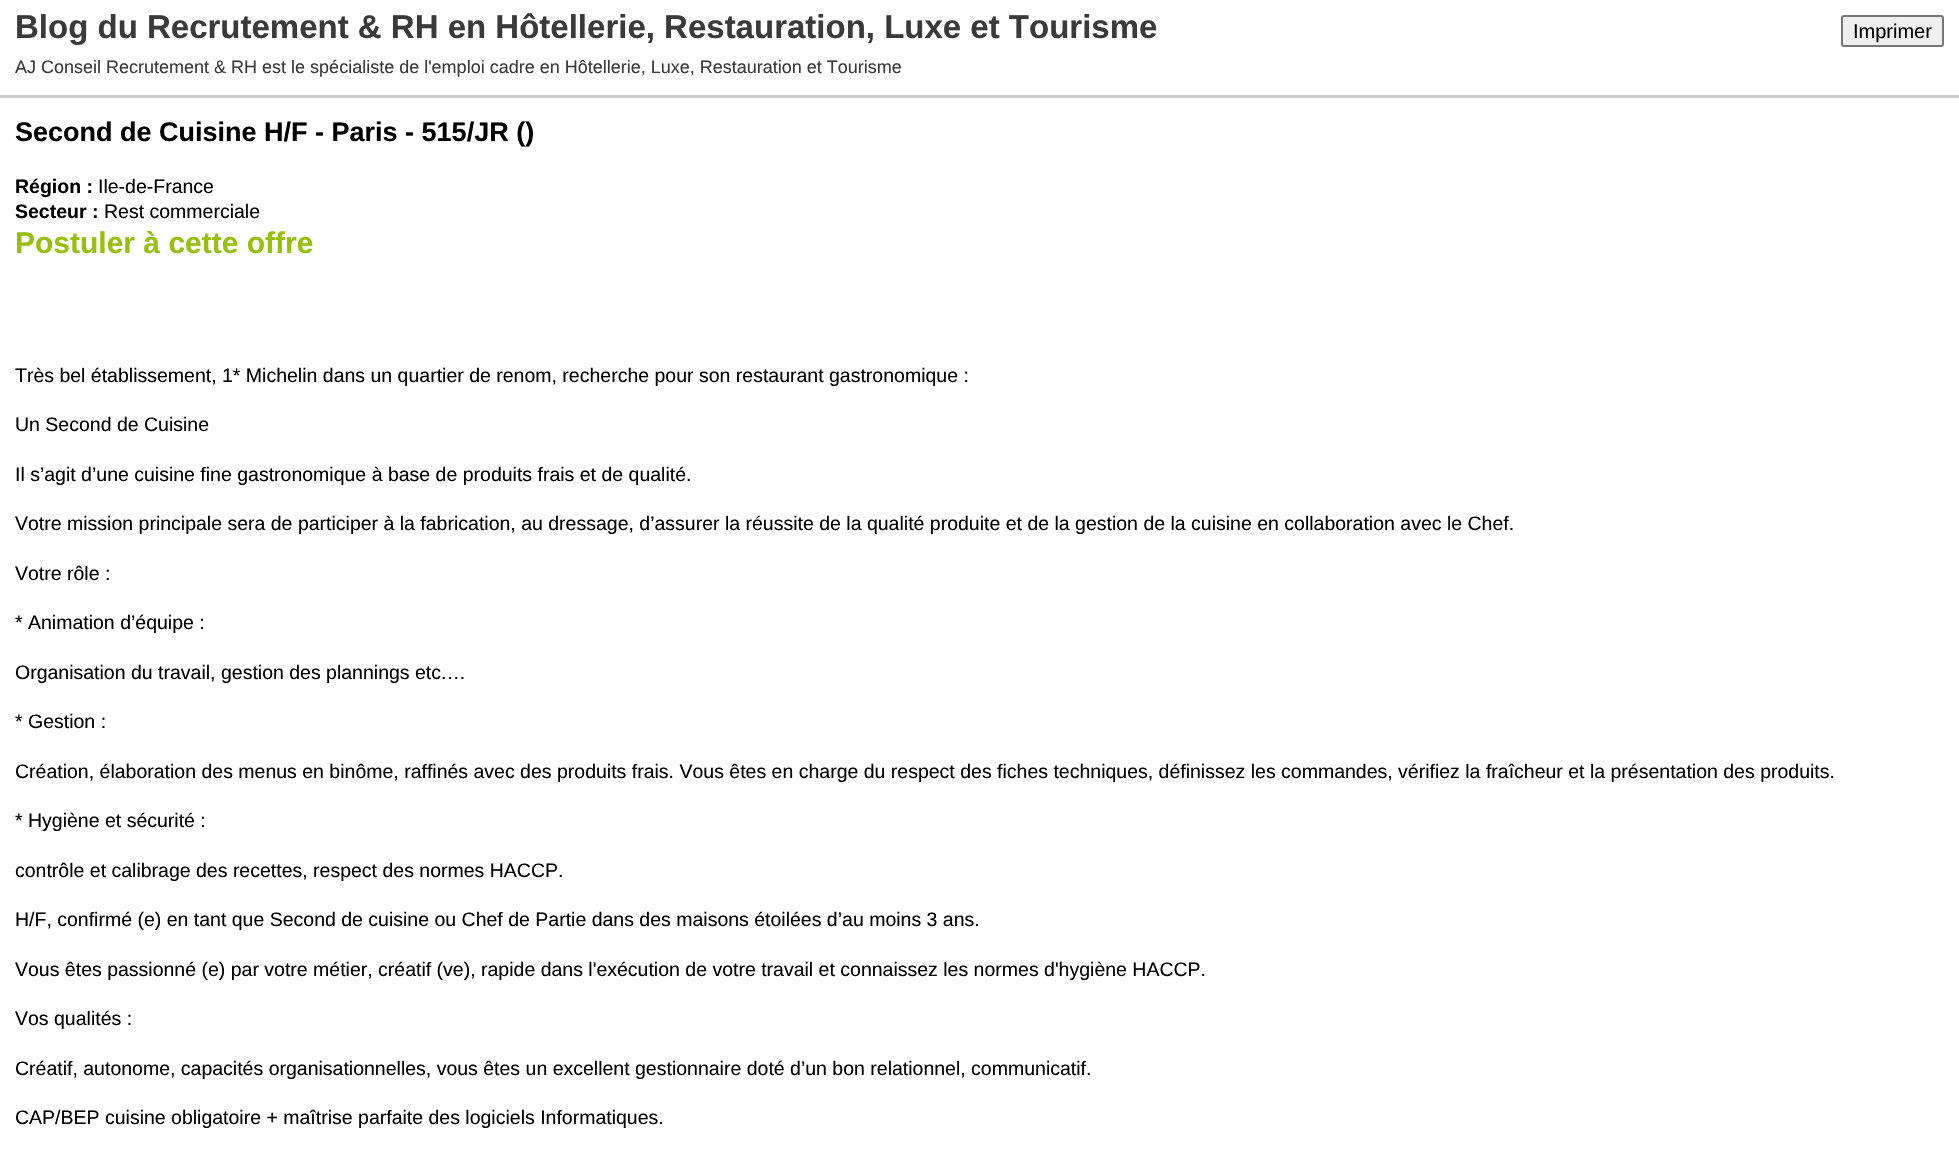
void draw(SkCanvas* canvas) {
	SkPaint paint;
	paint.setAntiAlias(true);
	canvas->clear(0xffffffff);
	paint.setColor(0xffcccccc);
	canvas->drawRect(SkRect::MakeXYWH(0, 95, 1959, 3), paint);
	SkFont f1(fontMgr->matchFamilyStyle("Liberation Sans", SkFontStyle::Bold()), 33);
	f1.setSubpixel(true);
	paint.setColor(0xff3a3a3a);
	canvas->drawString("Blog du Recrutement & RH en Hôtellerie, Restauration, Luxe et Tourisme", 15, 38, f1, paint);
	paint.setColor(0xffefefef);
	canvas->drawRoundRect(SkRect::MakeXYWH(1842, 16, 101, 30), 2, 2, paint);
	paint.setStroke(true);
	paint.setStrokeWidth(2);
	paint.setColor(0xff767676);
	canvas->drawRoundRect(SkRect::MakeXYWH(1842, 16, 101, 30), 2, 2, paint);
	SkFont f2(fontMgr->matchFamilyStyle("Liberation Sans", SkFontStyle::Normal()), 20);
	f2.setSubpixel(true);
	paint.setStroke(false);
	paint.setColor(0xff000000);
	canvas->drawString("Imprimer", 1853, 38, f2, paint);
	SkFont f3(fontMgr->matchFamilyStyle("Liberation Sans", SkFontStyle::Normal()), 18);
	f3.setSubpixel(true);
	paint.setColor(0xff3a3a3a);
	canvas->drawString("AJ Conseil Recrutement & RH est le spécialiste de l'emploi cadre en Hôtellerie, Luxe, Restauration et Tourisme", 15, 73, f3, paint);
	SkFont f4(fontMgr->matchFamilyStyle("Liberation Sans", SkFontStyle::Bold()), 27);
	f4.setSubpixel(true);
	paint.setColor(0xff000000);
	canvas->drawString("Second de Cuisine H/F - Paris - 515/JR ()", 15, 141, f4, paint);
	SkFont f5(fontMgr->matchFamilyStyle("Liberation Sans", SkFontStyle::Bold()), 19.5);
	f5.setSubpixel(true);
	canvas->drawString("Région :", 15, 193, f5, paint);
	SkFont f6(fontMgr->matchFamilyStyle("Liberation Sans", SkFontStyle::Normal()), 19.5);
	f6.setSubpixel(true);
	canvas->drawString("Ile-de-France", 98, 193, f6, paint);
	canvas->drawString("Secteur :", 15, 218, f5, paint);
	canvas->drawString("Rest commerciale", 104, 218, f6, paint);
	SkFont f7(fontMgr->matchFamilyStyle("Liberation Sans", SkFontStyle::Bold()), 30);
	f7.setSubpixel(true);
	paint.setColor(0xff97bf0d);
	canvas->drawString("Postuler à cette offre", 15, 253, f7, paint);
	paint.setColor(0xff000000);
	canvas->drawString("Très bel établissement, 1* Michelin dans un quartier de renom, recherche pour son restaurant gastronomique :", 15, 382, f6, paint);
	canvas->drawString("Un Second de Cuisine", 15, 431, f6, paint);
	canvas->drawString("Il s’agit d’une cuisine fine gastronomique à base de produits frais et de qualité.", 15, 481, f6, paint);
	canvas->drawString("Votre mission principale sera de participer à la fabrication, au dressage, d’assurer la réussite de la qualité produite et de la gestion de la cuisine en collaboration avec le Chef.", 15, 530, f6, paint);
	canvas->drawString("Votre rôle :", 15, 580, f6, paint);
	canvas->drawString("* Animation d’équipe :", 15, 629, f6, paint);
	canvas->drawString("Organisation du travail, gestion des plannings etc.…", 15, 679, f6, paint);
	canvas->drawString("* Gestion :", 15, 728, f6, paint);
	canvas->drawString("Création, élaboration des menus en binôme, raffinés avec des produits frais. Vous êtes en charge du respect des fiches techniques, définissez les commandes, vérifiez la fraîcheur et la présentation des produits.", 15, 778, f6, paint);
	canvas->drawString("* Hygiène et sécurité :", 15, 827, f6, paint);
	canvas->drawString("contrôle et calibrage des recettes, respect des normes HACCP.", 15, 877, f6, paint);
	canvas->drawString("H/F, confirmé (e) en tant que Second de cuisine ou Chef de Partie dans des maisons étoilées d’au moins 3 ans.", 15, 926, f6, paint);
	canvas->drawString("Vous êtes passionné (e) par votre métier, créatif (ve), rapide dans l'exécution de votre travail et connaissez les normes d'hygiène HACCP.", 15, 976, f6, paint);
	canvas->drawString("Vos qualités :", 15, 1025, f6, paint);
	canvas->drawString("Créatif, autonome, capacités organisationnelles, vous êtes un excellent gestionnaire doté d’un bon relationnel, communicatif.", 15, 1075, f6, paint);
	canvas->drawString("CAP/BEP cuisine obligatoire + maîtrise parfaite des logiciels Informatiques.", 15, 1124, f6, paint);
}
